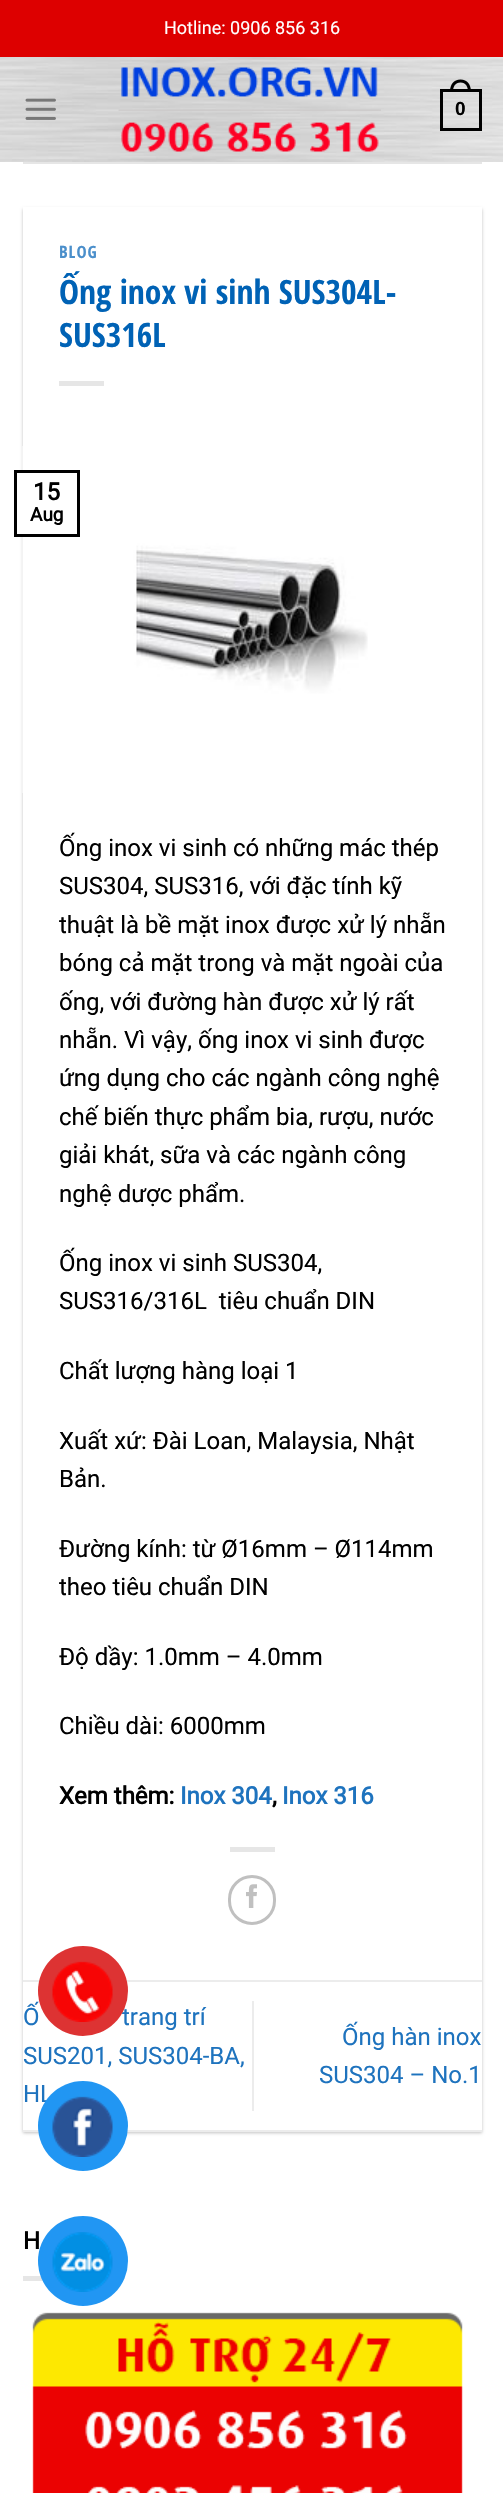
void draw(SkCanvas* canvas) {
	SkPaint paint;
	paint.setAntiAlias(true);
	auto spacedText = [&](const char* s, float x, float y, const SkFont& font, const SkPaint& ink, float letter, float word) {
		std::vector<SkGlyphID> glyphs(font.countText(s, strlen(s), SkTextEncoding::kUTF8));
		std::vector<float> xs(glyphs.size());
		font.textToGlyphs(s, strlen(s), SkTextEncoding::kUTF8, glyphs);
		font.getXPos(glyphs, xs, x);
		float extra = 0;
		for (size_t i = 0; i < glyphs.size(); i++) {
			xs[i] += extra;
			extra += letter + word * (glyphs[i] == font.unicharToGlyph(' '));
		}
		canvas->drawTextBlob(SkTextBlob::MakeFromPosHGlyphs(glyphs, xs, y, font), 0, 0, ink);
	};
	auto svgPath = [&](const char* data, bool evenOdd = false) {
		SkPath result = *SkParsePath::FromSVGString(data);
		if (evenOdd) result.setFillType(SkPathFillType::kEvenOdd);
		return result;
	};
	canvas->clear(0xffffffff);
	paint.setColor(0xffdd0000);
	canvas->drawRect(SkRect::MakeXYWH(0, 0, 503, 57), paint);
	SkFont f1(fontMgr->matchFamilyStyle("Roboto", SkFontStyle::Normal()), 18);
	f1.setSubpixel(true);
	paint.setColor(0xffffffff);
	canvas->drawString("Hotline: 0906 856 316", 164, 34, f1, paint);
	canvas->drawImageRect(SkImages::DeferredFromEncodedData(SkData::MakeFromFileName("img1.png")), SkRect::MakeXYWH(0, 57, 503, 105), SkSamplingOptions());
	canvas->drawImageRect(SkImages::DeferredFromEncodedData(SkData::MakeFromFileName("img2.png")), SkRect::MakeXYWH(25, 98, 31, 22), SkSamplingOptions());
	canvas->drawImageRect(SkImages::DeferredFromEncodedData(SkData::MakeFromFileName("img3.png")), SkRect::MakeXYWH(118, 67, 263, 85), SkSamplingOptions());
	paint.setStroke(true);
	paint.setStrokeWidth(3);
	paint.setColor(0xff000000);
	canvas->drawRect(SkRect::MakeXYWH(441.5, 90.5, 39, 39), paint);
	paint.setStroke(false);
	canvas->drawPath(svgPath("M460.5 79.5C467.5 79.5 471 85 471 91.5H450C450 85 453.5 79.5 460.5 79.5ZM460.5 82.5C466 82.5 468 87 468 91.5H453C453 87 455 82.5 460.5 82.5Z", true), paint);
	SkFont f2(fontMgr->matchFamilyStyle("Liberation Sans", SkFontStyle::Bold()), 19);
	f2.setSubpixel(true);
	canvas->drawString("0", 455, 115, f2, paint);
	paint.setColor(0xffe6e6e6);
	canvas->drawRect(SkRect::MakeXYWH(23, 162, 459, 2), paint);
	paint.setColor(0x3d000000);
	paint.setMaskFilter(SkMaskFilter::MakeBlur(kNormal_SkBlurStyle, 1.5));
	canvas->drawRect(SkRect::MakeXYWH(23, 209, 459, 1924), paint);
	paint.setMaskFilter(nullptr);
	paint.setColor(0xffffffff);
	canvas->drawRect(SkRect::MakeXYWH(23, 207, 459, 1923), paint);
	SkFont f3(fontMgr->matchFamilyStyle("Open Sans Condensed", SkFontStyle::Bold()), 17);
	f3.setSubpixel(true);
	paint.setColor(0xff4b8fcb);
	spacedText("BLOG", 59, 258, f3, paint, 1, 0);
	SkFont f4(fontMgr->matchFamilyStyle("Open Sans Condensed", SkFontStyle::Bold()), 33.6);
	f4.setSubpixel(true);
	paint.setColor(0xff0062b5);
	canvas->drawString("Ống inox vi sinh SUS304L-", 59, 304, f4, paint);
	canvas->drawString("SUS316L", 59, 347, f4, paint);
	paint.setColor(0xffe6e6e6);
	canvas->drawRect(SkRect::MakeXYWH(59, 381, 45, 5), paint);
	canvas->drawImageRect(SkImages::DeferredFromEncodedData(SkData::MakeFromFileName("img4.png")), SkRect::MakeXYWH(22, 446, 346, 347), SkSamplingOptions());
	paint.setColor(0xffffffff);
	canvas->drawRect(SkRect::MakeXYWH(20, 473, 3, 61), paint);
	paint.setStroke(true);
	paint.setColor(0xff000000);
	canvas->drawRect(SkRect::MakeXYWH(15.5, 471.5, 63, 64), paint);
	SkFont f5(fontMgr->matchFamilyStyle("Roboto", SkFontStyle::Bold()), 24);
	f5.setSubpixel(true);
	paint.setStroke(false);
	canvas->drawString("15", 33, 500, f5, paint);
	SkFont f6(fontMgr->matchFamilyStyle("Roboto", SkFontStyle::Bold()), 19);
	f6.setSubpixel(true);
	canvas->drawString("Aug", 30, 521, f6, paint);
	SkFont f7(fontMgr->matchFamilyStyle("Roboto", SkFontStyle::Normal()), 24);
	f7.setSubpixel(true);
	canvas->drawString("Ống inox vi sinh có những mác thép", 59, 856, f7, paint);
	canvas->drawString("SUS304, SUS316, với đặc tính kỹ", 59, 894, f7, paint);
	canvas->drawString("thuật là bề mặt inox được xử lý nhẵn", 59, 933, f7, paint);
	canvas->drawString("bóng cả mặt trong và mặt ngoài của", 59, 971, f7, paint);
	canvas->drawString("ống, với đường hàn được xử lý rất", 59, 1010, f7, paint);
	canvas->drawString("nhẵn. Vì vậy, ống inox vi sinh được", 59, 1048, f7, paint);
	canvas->drawString("ứng dụng cho các ngành công nghệ", 59, 1086, f7, paint);
	canvas->drawString("chế biến thực phẩm bia, rượu, nước", 59, 1125, f7, paint);
	canvas->drawString("giải khát, sữa và các ngành công", 59, 1163, f7, paint);
	canvas->drawString("nghệ dược phẩm.", 59, 1202, f7, paint);
	canvas->drawString("Ống inox vi sinh SUS304,", 59, 1271, f7, paint);
	canvas->drawString("SUS316/316L  tiêu chuẩn DIN", 59, 1309, f7, paint);
	canvas->drawString("Chất lượng hàng loại 1", 59, 1379, f7, paint);
	canvas->drawString("Xuất xứ: Đài Loan, Malaysia, Nhật", 59, 1449, f7, paint);
	canvas->drawString("Bản.", 59, 1487, f7, paint);
	canvas->drawString("Đường kính: từ Ø16mm – Ø114mm", 59, 1557, f7, paint);
	canvas->drawString("theo tiêu chuẩn DIN", 59, 1595, f7, paint);
	canvas->drawString("Độ dầy: 1.0mm – 4.0mm", 59, 1665, f7, paint);
	canvas->drawString("Chiều dài: 6000mm", 59, 1734, f7, paint);
	canvas->drawString("Xem thêm:", 59, 1804, f5, paint);
	paint.setColor(0xff1e73be);
	canvas->drawString("Inox 304", 180, 1804, f5, paint);
	paint.setColor(0xff000000);
	canvas->drawString(",", 272, 1804, f5, paint);
	paint.setColor(0xff1e73be);
	canvas->drawString("Inox 316", 282, 1804, f5, paint);
	paint.setColor(0xffe6e6e6);
	canvas->drawRect(SkRect::MakeXYWH(230, 1847, 45, 5), paint);
	paint.setStroke(true);
	paint.setColor(0xffc0c0c0);
	canvas->drawRoundRect(SkRect::MakeXYWH(229.5, 1876.5, 45, 47), 22.5, 22.5, paint);
	canvas->drawImageRect(SkImages::DeferredFromEncodedData(SkData::MakeFromFileName("img5.png")), SkRect::MakeXYWH(246, 1884, 11, 24), SkSamplingOptions());
	paint.setStroke(false);
	paint.setColor(0xffececec);
	canvas->drawRect(SkRect::MakeXYWH(23, 1980, 459, 2), paint);
	canvas->drawRect(SkRect::MakeXYWH(23, 2130, 459, 2), paint);
	paint.setColor(0xff1e73be);
	canvas->drawString("Ố", 23, 2025, f7, paint);
	canvas->drawString("trang trí", 122, 2025, f7, paint);
	canvas->drawString("SUS201, SUS304-BA,", 23, 2064, f7, paint);
	canvas->drawString("HL", 23, 2102, f7, paint);
	paint.setColor(0xffececec);
	canvas->drawRect(SkRect::MakeXYWH(252, 2001, 2, 110), paint);
	paint.setColor(0xff1e73be);
	canvas->drawString("Ống hàn inox", 342, 2045, f7, paint);
	canvas->drawString("SUS304 – No.1", 319, 2083, f7, paint);
	paint.setColor(0xff000000);
	spacedText("H", 23, 2249, f5, paint, 1, 0);
	paint.setColor(0xffe6e6e6);
	canvas->drawRect(SkRect::MakeXYWH(23, 2276, 20, 5), paint);
	canvas->drawImageRect(SkImages::DeferredFromEncodedData(SkData::MakeFromFileName("img6.png")), SkRect::MakeXYWH(32, 2312, 431, 181), SkSamplingOptions());
	paint.setColor(0xffdd3333);
	canvas->drawCircle(83, 1991, 45, paint);
	canvas->drawImageRect(SkImages::DeferredFromEncodedData(SkData::MakeFromFileName("img7.png")), SkRect::MakeXYWH(52, 1961, 61, 61), SkSamplingOptions());
	paint.setColor(0xff2196f3);
	canvas->drawCircle(83, 2126, 45, paint);
	canvas->drawImageRect(SkImages::DeferredFromEncodedData(SkData::MakeFromFileName("img8.png")), SkRect::MakeXYWH(52, 2096, 61, 61), SkSamplingOptions());
	canvas->drawCircle(83, 2261, 45, paint);
	canvas->drawImageRect(SkImages::DeferredFromEncodedData(SkData::MakeFromFileName("img9.png")), SkRect::MakeXYWH(52, 2232, 61, 60), SkSamplingOptions());
}
